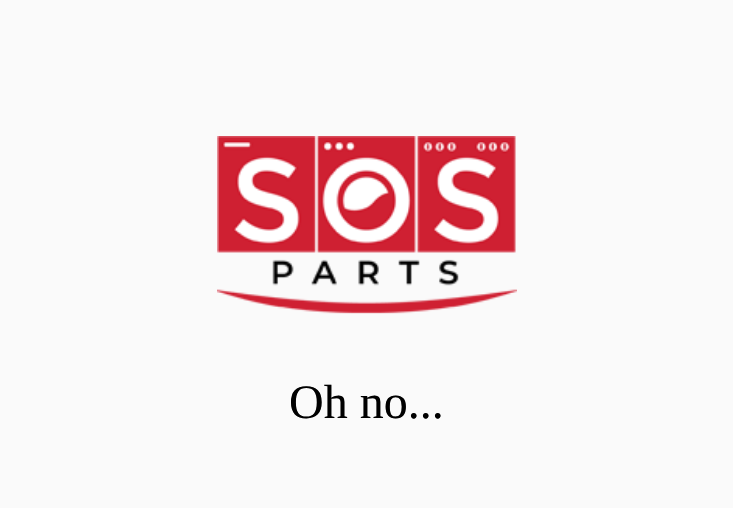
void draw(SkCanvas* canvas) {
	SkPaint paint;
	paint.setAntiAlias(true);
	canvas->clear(0xfffafafa);
	canvas->drawImageRect(SkImages::DeferredFromEncodedData(SkData::MakeFromFileName("img1.png")), SkRect::MakeXYWH(217, 136, 300, 178), SkSamplingOptions());
	SkFont f1(fontMgr->matchFamilyStyle("Liberation Serif", SkFontStyle::Normal()), 48);
	f1.setSubpixel(true);
	paint.setColor(0xff000000);
	canvas->drawString("Oh no...", 289, 418, f1, paint);
}
